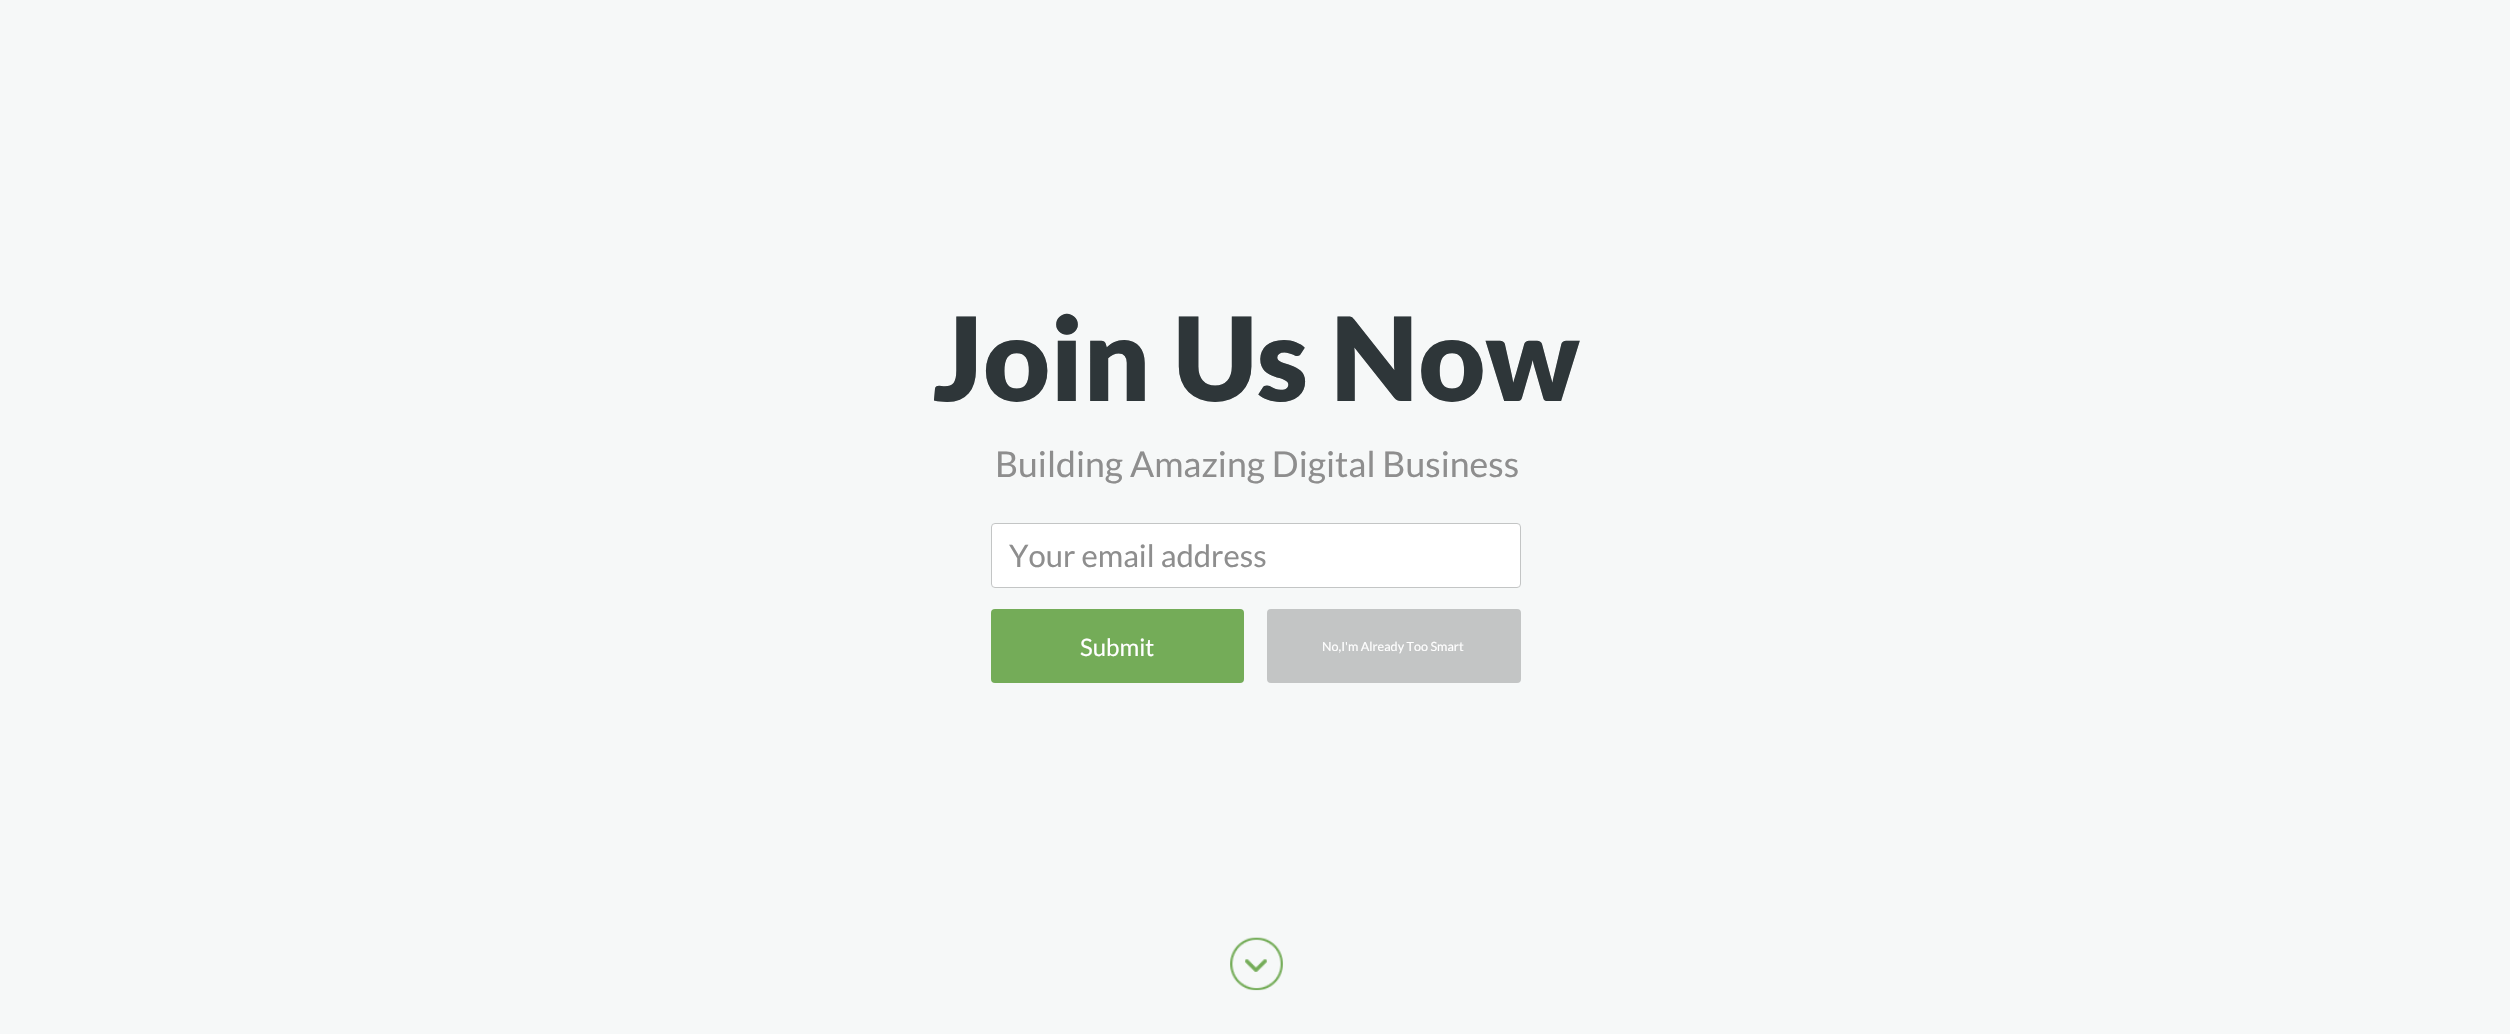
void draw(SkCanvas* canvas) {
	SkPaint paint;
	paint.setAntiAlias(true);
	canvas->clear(0xfff6f8f8);
	SkFont f1(fontMgr->matchFamilyStyle("Lato", SkFontStyle(900, SkFontStyle::kNormal_Width, SkFontStyle::kUpright_Slant)), 116);
	f1.setSubpixel(true);
	paint.setColor(0xff2e3639);
	canvas->drawString("Join Us Now", 933, 401, f1, paint);
	SkFont f2(fontMgr->matchFamilyStyle("Lato", SkFontStyle::Normal()), 35.6);
	f2.setSubpixel(true);
	paint.setColor(0xff8e8e8e);
	canvas->drawString("Building Amazing Digital Business", 995, 477, f2, paint);
	paint.setColor(0xffffffff);
	canvas->drawRoundRect(SkRect::MakeXYWH(991.5, 523.5, 529, 64), 3.5, 3.5, paint);
	paint.setStroke(true);
	paint.setStrokeWidth(1);
	paint.setColor(0xffc3c5c5);
	canvas->drawRoundRect(SkRect::MakeXYWH(991.5, 523.5, 529, 64), 3.5, 3.5, paint);
	SkFont f3(fontMgr->matchFamilyStyle("Lato", SkFontStyle::Normal()), 31);
	f3.setSubpixel(true);
	paint.setStroke(false);
	paint.setColor(0xff8e8e8e);
	canvas->drawString("Your email address", 1009, 567, f3, paint);
	paint.setColor(0xff74ac58);
	canvas->drawRoundRect(SkRect::MakeXYWH(991, 609, 253, 74), 4, 4, paint);
	SkFont f4(fontMgr->matchFamilyStyle("Lato", SkFontStyle::Normal()), 24);
	f4.setSubpixel(true);
	paint.setColor(0xffffffff);
	canvas->drawString("Submit", 1080, 656, f4, paint);
	paint.setColor(0xffc3c5c5);
	canvas->drawRoundRect(SkRect::MakeXYWH(1267, 609, 254, 74), 4, 4, paint);
	SkFont f5(fontMgr->matchFamilyStyle("Lato", SkFontStyle::Normal()), 12.6);
	f5.setSubpixel(true);
	paint.setColor(0xffffffff);
	canvas->drawString("No,I'm Already Too Smart", 1322, 651, f5, paint);
	canvas->drawImageRect(SkImages::DeferredFromEncodedData(SkData::MakeFromFileName("img1.png")), SkRect::MakeXYWH(1230, 937, 53, 54), SkSamplingOptions());
}
